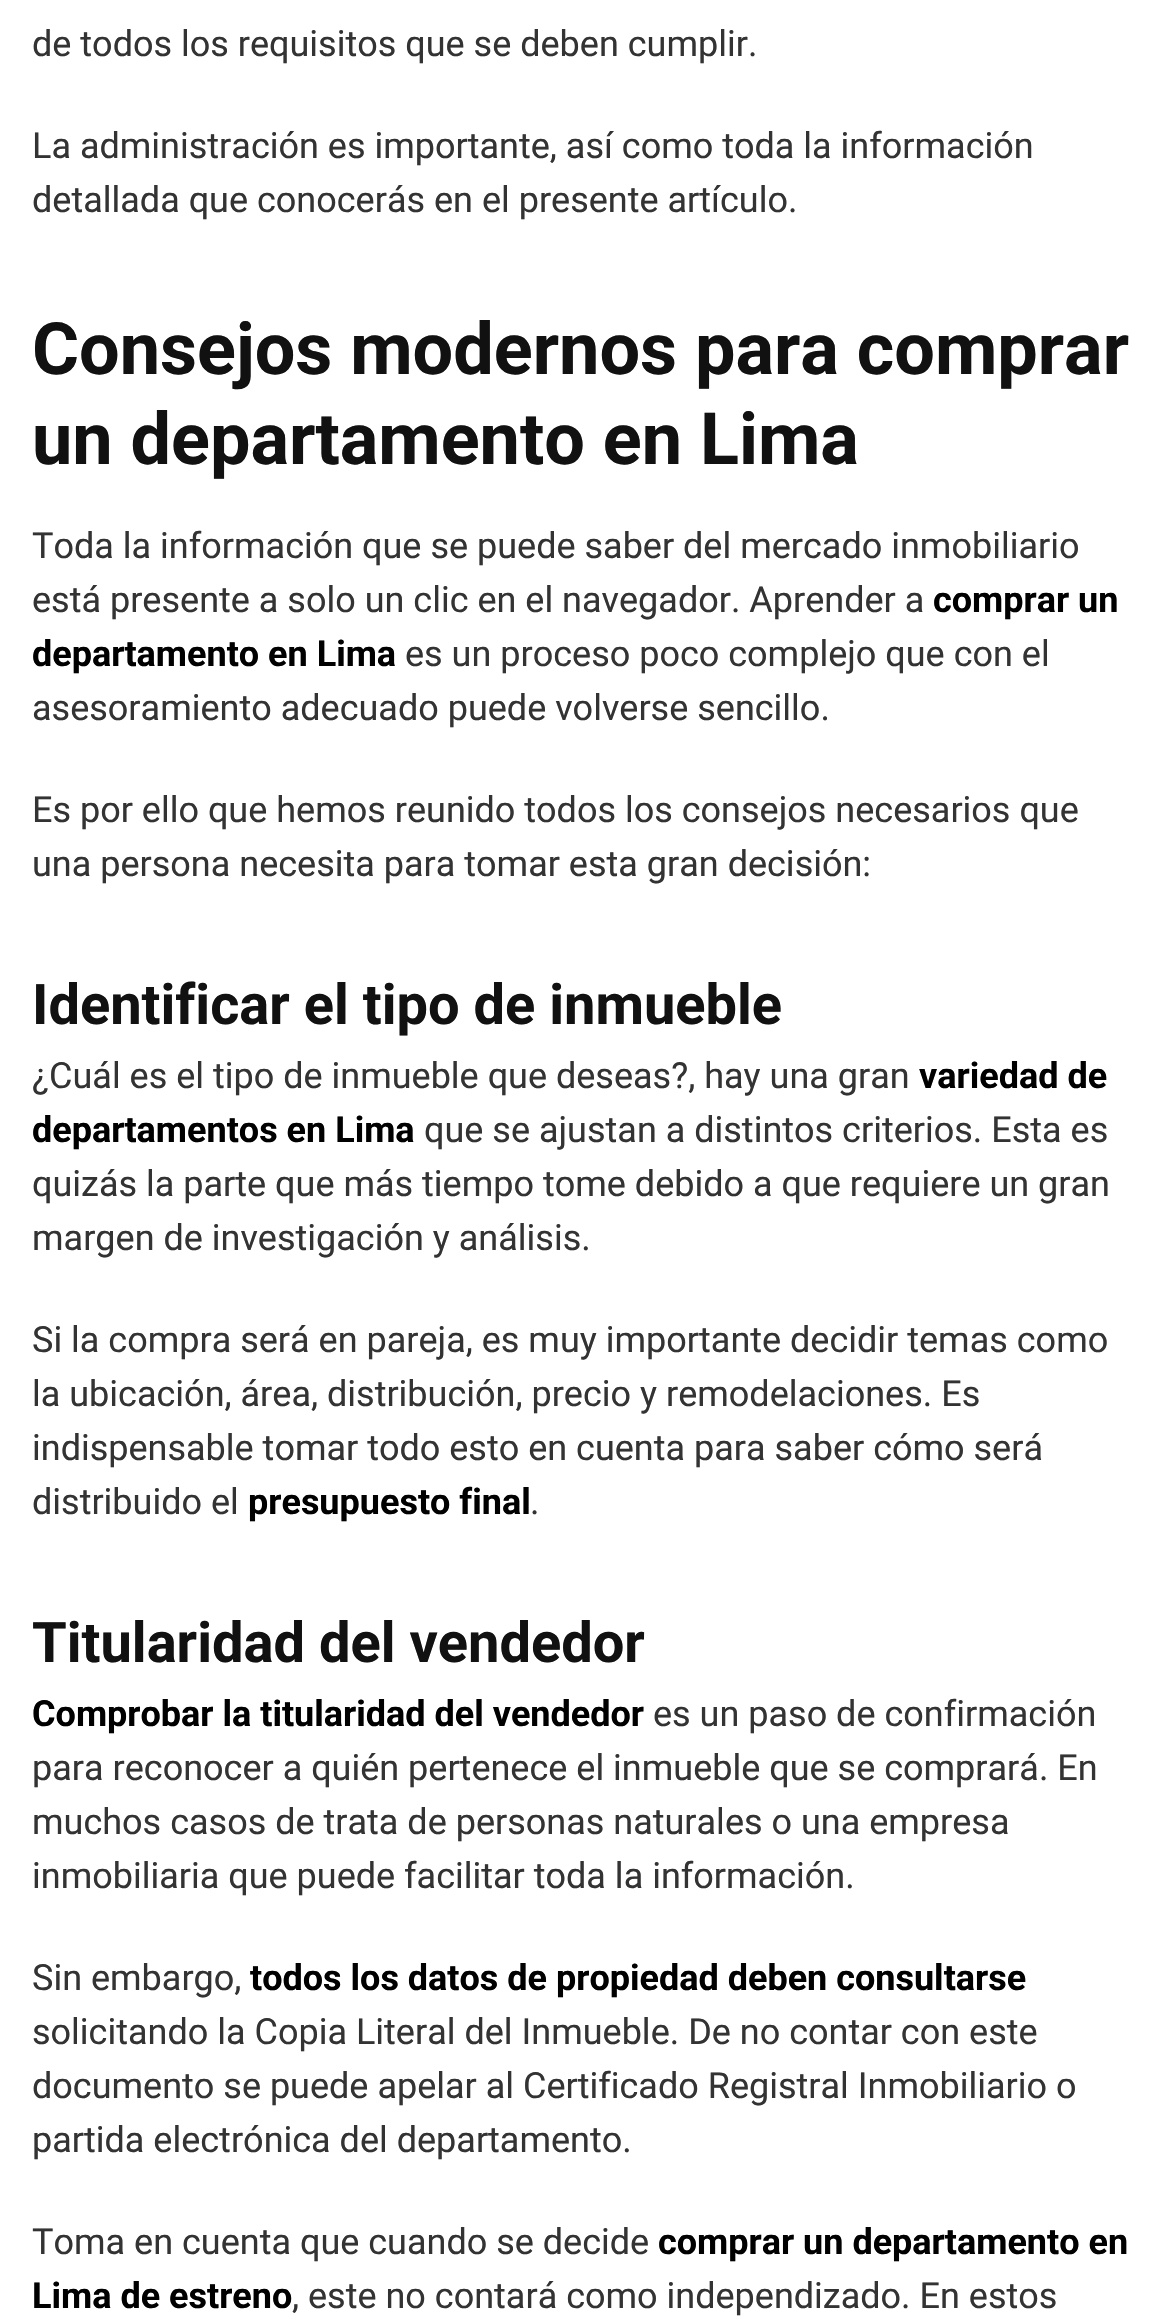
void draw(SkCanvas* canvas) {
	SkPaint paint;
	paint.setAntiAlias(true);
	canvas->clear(0xffffffff);
	SkFont f1(fontMgr->matchFamilyStyle("Roboto", SkFontStyle::Normal()), 36);
	f1.setSubpixel(true);
	paint.setColor(0xff333333);
	canvas->drawString("de todos los requisitos que se deben cumplir.", 32, 56, f1, paint);
	canvas->drawString("La administración es importante, así como toda la información", 32, 158, f1, paint);
	canvas->drawString("detallada que conocerás en el presente artículo.", 32, 212, f1, paint);
	SkFont f2(fontMgr->matchFamilyStyle("Roboto", SkFontStyle::Bold()), 72);
	f2.setSubpixel(true);
	paint.setColor(0xff111111);
	canvas->drawString("Consejos modernos para comprar", 32, 374, f2, paint);
	canvas->drawString("un departamento en Lima", 32, 464, f2, paint);
	paint.setColor(0xff333333);
	canvas->drawString("Toda la información que se puede saber del mercado inmobiliario", 32, 558, f1, paint);
	canvas->drawString("está presente a solo un clic en el navegador. Aprender a", 32, 612, f1, paint);
	SkFont f3(fontMgr->matchFamilyStyle("Roboto", SkFontStyle::Bold()), 36);
	f3.setSubpixel(true);
	paint.setColor(0xff000000);
	canvas->drawString("comprar un", 933, 612, f3, paint);
	canvas->drawString("departamento en Lima", 32, 666, f3, paint);
	paint.setColor(0xff333333);
	canvas->drawString("es un proceso poco complejo que con el", 405, 666, f1, paint);
	canvas->drawString("asesoramiento adecuado puede volverse sencillo.", 32, 720, f1, paint);
	canvas->drawString("Es por ello que hemos reunido todos los consejos necesarios que", 32, 822, f1, paint);
	canvas->drawString("una persona necesita para tomar esta gran decisión:", 32, 876, f1, paint);
	SkFont f4(fontMgr->matchFamilyStyle("Roboto", SkFontStyle::Bold()), 56);
	f4.setSubpixel(true);
	paint.setColor(0xff111111);
	canvas->drawString("Identificar el tipo de inmueble", 32, 1024, f4, paint);
	paint.setColor(0xff333333);
	canvas->drawString("¿Cuál es el tipo de inmueble que deseas?, hay una gran", 32, 1088, f1, paint);
	paint.setColor(0xff000000);
	canvas->drawString("variedad de", 919, 1088, f3, paint);
	canvas->drawString("departamentos en Lima", 32, 1142, f3, paint);
	paint.setColor(0xff333333);
	canvas->drawString("que se ajustan a distintos criterios. Esta es", 424, 1142, f1, paint);
	canvas->drawString("quizás la parte que más tiempo tome debido a que requiere un gran", 32, 1196, f1, paint);
	canvas->drawString("margen de investigación y análisis.", 32, 1250, f1, paint);
	canvas->drawString("Si la compra será en pareja, es muy importante decidir temas como", 32, 1352, f1, paint);
	canvas->drawString("la ubicación, área, distribución, precio y remodelaciones. Es", 32, 1406, f1, paint);
	canvas->drawString("indispensable tomar todo esto en cuenta para saber cómo será", 32, 1460, f1, paint);
	canvas->drawString("distribuido el", 32, 1514, f1, paint);
	paint.setColor(0xff000000);
	canvas->drawString("presupuesto final", 248, 1514, f3, paint);
	paint.setColor(0xff333333);
	canvas->drawString(".", 530, 1514, f1, paint);
	paint.setColor(0xff111111);
	canvas->drawString("Titularidad del vendedor", 32, 1662, f4, paint);
	paint.setColor(0xff000000);
	canvas->drawString("Comprobar la titularidad del vendedor", 32, 1726, f3, paint);
	paint.setColor(0xff333333);
	canvas->drawString("es un paso de confirmación", 653, 1726, f1, paint);
	canvas->drawString("para reconocer a quién pertenece el inmueble que se comprará. En", 32, 1780, f1, paint);
	canvas->drawString("muchos casos de trata de personas naturales o una empresa", 32, 1834, f1, paint);
	canvas->drawString("inmobiliaria que puede facilitar toda la información.", 32, 1888, f1, paint);
	canvas->drawString("Sin embargo,", 32, 1990, f1, paint);
	paint.setColor(0xff000000);
	canvas->drawString("todos los datos de propiedad deben consultarse", 250, 1990, f3, paint);
	paint.setColor(0xff333333);
	canvas->drawString("solicitando la Copia Literal del Inmueble. De no contar con este", 32, 2044, f1, paint);
	canvas->drawString("documento se puede apelar al Certificado Registral Inmobiliario o", 32, 2098, f1, paint);
	canvas->drawString("partida electrónica del departamento.", 32, 2152, f1, paint);
	canvas->drawString("Toma en cuenta que cuando se decide", 32, 2254, f1, paint);
	paint.setColor(0xff000000);
	canvas->drawString("comprar un departamento en", 658, 2254, f3, paint);
	canvas->drawString("Lima de estreno", 32, 2308, f3, paint);
	paint.setColor(0xff333333);
	canvas->drawString(", este no contará como independizado. En estos", 292, 2308, f1, paint);
}
